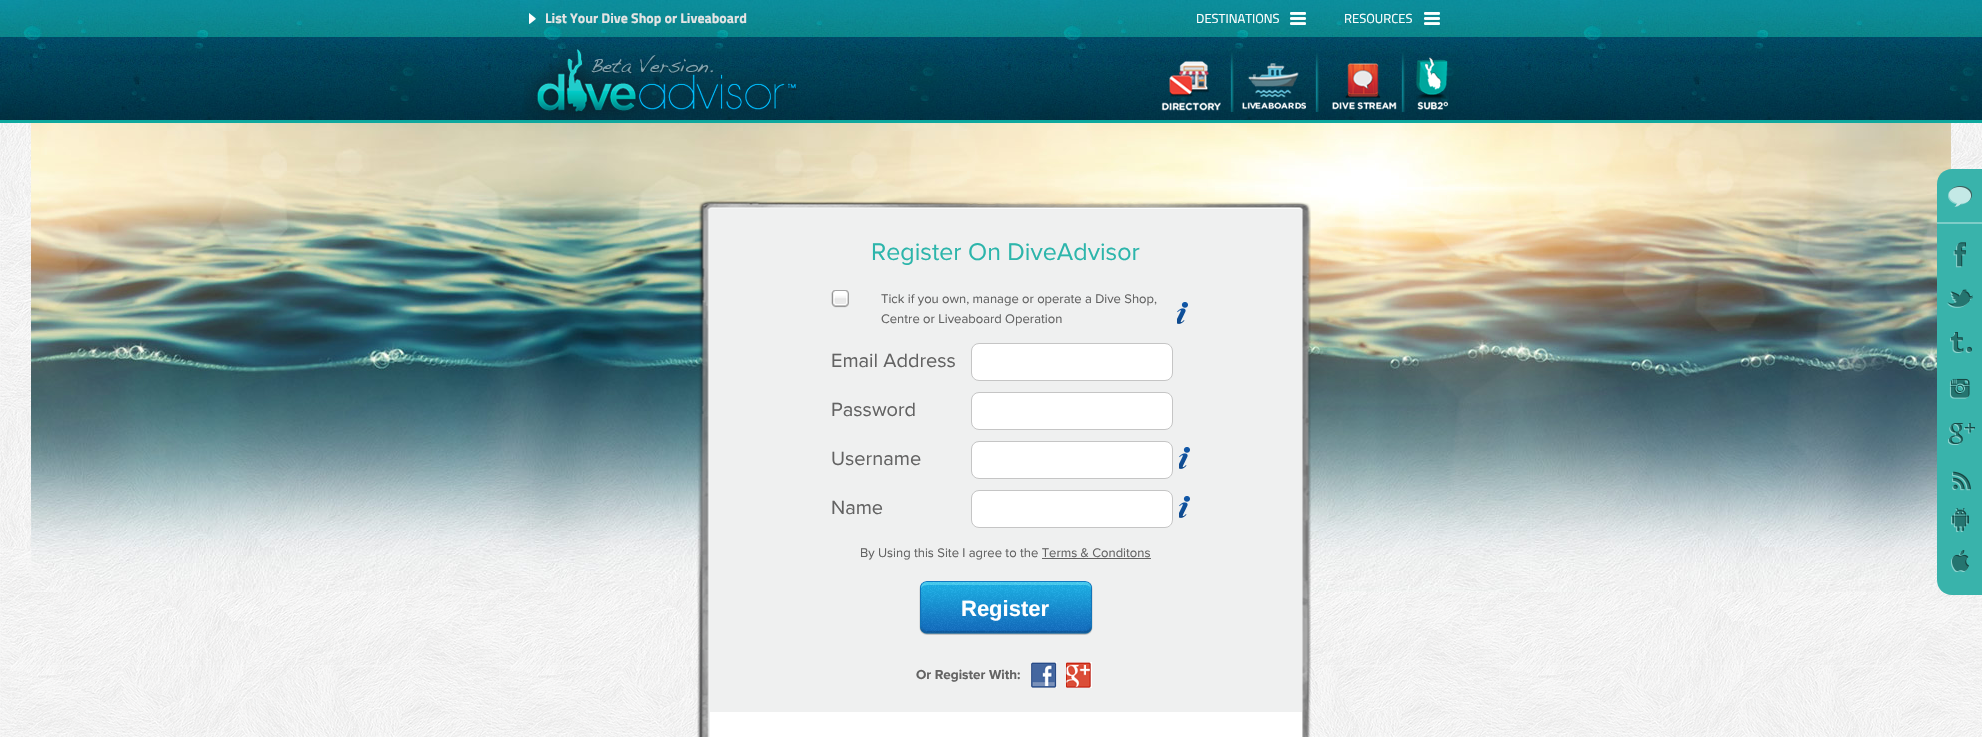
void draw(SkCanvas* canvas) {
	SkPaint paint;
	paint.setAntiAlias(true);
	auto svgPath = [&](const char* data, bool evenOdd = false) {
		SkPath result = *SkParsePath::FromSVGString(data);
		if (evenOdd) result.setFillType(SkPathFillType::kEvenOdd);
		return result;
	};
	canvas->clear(0xffffffff);
	canvas->drawImageRect(SkImages::DeferredFromEncodedData(SkData::MakeFromFileName("img1.png")), SkRect::MakeXYWH(0, 123, 1982, 614), SkSamplingOptions());
	canvas->drawImageRect(SkImages::DeferredFromEncodedData(SkData::MakeFromFileName("img2.png")), SkRect::MakeXYWH(0, 0, 1982, 120), SkSamplingOptions());
	paint.setColor(0xff0ea89e);
	canvas->drawRect(SkRect::MakeXYWH(0, 120, 1982, 3), paint);
	canvas->drawImageRect(SkImages::DeferredFromEncodedData(SkData::MakeFromFileName("img3.png")), SkRect::MakeXYWH(529, 13, 7, 11), SkSamplingOptions());
	SkFont f1(fontMgr->matchFamilyStyle("Titillium Web", SkFontStyle::Bold()), 14);
	f1.setSubpixel(true);
	paint.setColor(0xffe4e4e4);
	canvas->drawString("List Your Dive Shop or Liveaboard", 545, 23, f1, paint);
	SkFont f2(fontMgr->matchFamilyStyle("Titillium Web", SkFontStyle::Normal()), 13);
	f2.setSubpixel(true);
	paint.setColor(0xffffffff);
	canvas->drawString("DESTINATIONS", 1196, 23, f2, paint);
	canvas->drawImageRect(SkImages::DeferredFromEncodedData(SkData::MakeFromFileName("img4.png")), SkRect::MakeXYWH(1290, 12, 16, 13), SkSamplingOptions());
	canvas->drawString("RESOURCES", 1344, 23, f2, paint);
	canvas->drawImageRect(SkImages::DeferredFromEncodedData(SkData::MakeFromFileName("img5.png")), SkRect::MakeXYWH(1424, 12, 16, 13), SkSamplingOptions());
	canvas->drawImageRect(SkImages::DeferredFromEncodedData(SkData::MakeFromFileName("img6.png")), SkRect::MakeXYWH(524, 44, 273, 76), SkSamplingOptions());
	canvas->drawImageRect(SkImages::DeferredFromEncodedData(SkData::MakeFromFileName("img7.png")), SkRect::MakeXYWH(591, 55, 123, 20), SkSamplingOptions());
	canvas->drawImageRect(SkImages::DeferredFromEncodedData(SkData::MakeFromFileName("img8.png")), SkRect::MakeXYWH(1161, 61, 60, 50), SkSamplingOptions());
	canvas->drawImageRect(SkImages::DeferredFromEncodedData(SkData::MakeFromFileName("img9.png")), SkRect::MakeXYWH(1230, 53, 4, 59), SkSamplingOptions());
	canvas->drawImageRect(SkImages::DeferredFromEncodedData(SkData::MakeFromFileName("img10.png")), SkRect::MakeXYWH(1242, 63, 64, 47), SkSamplingOptions());
	canvas->drawImageRect(SkImages::DeferredFromEncodedData(SkData::MakeFromFileName("img11.png")), SkRect::MakeXYWH(1315, 53, 4, 59), SkSamplingOptions());
	canvas->drawImageRect(SkImages::DeferredFromEncodedData(SkData::MakeFromFileName("img12.png")), SkRect::MakeXYWH(1332, 63, 65, 47), SkSamplingOptions());
	canvas->drawImageRect(SkImages::DeferredFromEncodedData(SkData::MakeFromFileName("img13.png")), SkRect::MakeXYWH(1401, 53, 4, 59), SkSamplingOptions());
	canvas->drawImageRect(SkImages::DeferredFromEncodedData(SkData::MakeFromFileName("img14.png")), SkRect::MakeXYWH(1416, 57, 33, 53), SkSamplingOptions());
	canvas->drawImageRect(SkImages::DeferredFromEncodedData(SkData::MakeFromFileName("img15.png")), SkRect::MakeXYWH(31, 123, 1920, 469), SkSamplingOptions());
	canvas->drawImageRect(SkImages::DeferredFromEncodedData(SkData::MakeFromFileName("img16.png")), SkRect::MakeXYWH(697, 201, 614, 536), SkSamplingOptions());
	SkFont f3(fontMgr->matchFamilyStyle("Proxima Nova", SkFontStyle::Normal()), 25);
	f3.setSubpixel(true);
	paint.setColor(0xff2cb5ab);
	canvas->drawString("Register On DiveAdvisor", 871, 260, f3, paint);
	canvas->drawImageRect(SkImages::DeferredFromEncodedData(SkData::MakeFromFileName("img17.png")), SkRect::MakeXYWH(831, 290, 18, 18), SkSamplingOptions());
	SkFont f4(fontMgr->matchFamilyStyle("Proxima Nova", SkFontStyle::Normal()), 13);
	f4.setSubpixel(true);
	paint.setColor(0xff636363);
	canvas->drawString("Tick if you own, manage or operate a Dive Shop,", 881, 303, f4, paint);
	canvas->drawString("Centre or Liveaboard Operation", 881, 323, f4, paint);
	canvas->drawImageRect(SkImages::DeferredFromEncodedData(SkData::MakeFromFileName("img18.png")), SkRect::MakeXYWH(1177, 302, 11, 22), SkSamplingOptions());
	SkFont f5(fontMgr->matchFamilyStyle("Proxima Nova", SkFontStyle::Normal()), 20);
	f5.setSubpixel(true);
	canvas->drawString("Email Address", 831, 367, f5, paint);
	paint.setColor(0xffffffff);
	canvas->drawRoundRect(SkRect::MakeXYWH(971.5, 343.5, 201, 37), 7.5, 7.5, paint);
	paint.setStroke(true);
	paint.setStrokeWidth(1);
	paint.setColor(0xffc5c5c5);
	canvas->drawRoundRect(SkRect::MakeXYWH(971.5, 343.5, 201, 37), 7.5, 7.5, paint);
	paint.setStroke(false);
	paint.setColor(0xff636363);
	canvas->drawString("Password", 831, 416, f5, paint);
	paint.setColor(0xffffffff);
	canvas->drawRoundRect(SkRect::MakeXYWH(971.5, 392.5, 201, 37), 7.5, 7.5, paint);
	paint.setStroke(true);
	paint.setColor(0xffc5c5c5);
	canvas->drawRoundRect(SkRect::MakeXYWH(971.5, 392.5, 201, 37), 7.5, 7.5, paint);
	paint.setStroke(false);
	paint.setColor(0xff636363);
	canvas->drawString("Username", 831, 465, f5, paint);
	paint.setColor(0xffffffff);
	canvas->drawRoundRect(SkRect::MakeXYWH(971.5, 441.5, 201, 37), 7.5, 7.5, paint);
	paint.setStroke(true);
	paint.setColor(0xffc5c5c5);
	canvas->drawRoundRect(SkRect::MakeXYWH(971.5, 441.5, 201, 37), 7.5, 7.5, paint);
	canvas->drawImageRect(SkImages::DeferredFromEncodedData(SkData::MakeFromFileName("img18.png")), SkRect::MakeXYWH(1179, 447, 11, 22), SkSamplingOptions());
	paint.setStroke(false);
	paint.setColor(0xff636363);
	canvas->drawString("Name", 831, 514, f5, paint);
	paint.setColor(0xffffffff);
	canvas->drawRoundRect(SkRect::MakeXYWH(971.5, 490.5, 201, 37), 7.5, 7.5, paint);
	paint.setStroke(true);
	paint.setColor(0xffc5c5c5);
	canvas->drawRoundRect(SkRect::MakeXYWH(971.5, 490.5, 201, 37), 7.5, 7.5, paint);
	canvas->drawImageRect(SkImages::DeferredFromEncodedData(SkData::MakeFromFileName("img18.png")), SkRect::MakeXYWH(1179, 496, 11, 22), SkSamplingOptions());
	paint.setStroke(false);
	paint.setColor(0xff636363);
	canvas->drawString("By Using this Site I agree to the Terms & Conditons", 860, 557, f4, paint);
	canvas->drawRect(SkRect::MakeXYWH(1042, 558, 109, 1), paint);
	canvas->drawImageRect(SkImages::DeferredFromEncodedData(SkData::MakeFromFileName("img19.png")), SkRect::MakeXYWH(919, 581, 174, 54), SkSamplingOptions());
	SkFont f6(fontMgr->matchFamilyStyle("Liberation Sans", SkFontStyle::Bold()), 22);
	f6.setSubpixel(true);
	paint.setColor(0xffffffff);
	canvas->drawString("Register", 961, 616, f6, paint);
	SkFont f7(fontMgr->matchFamilyStyle("Proxima Nova", SkFontStyle::Bold()), 13.5);
	f7.setSubpixel(true);
	paint.setColor(0xff636363);
	canvas->drawString("Or Register With:", 916, 679, f7, paint);
	canvas->drawImageRect(SkImages::DeferredFromEncodedData(SkData::MakeFromFileName("img20.png")), SkRect::MakeXYWH(1031, 662, 26, 26), SkSamplingOptions());
	canvas->drawImageRect(SkImages::DeferredFromEncodedData(SkData::MakeFromFileName("img21.png")), SkRect::MakeXYWH(1066, 662, 26, 26), SkSamplingOptions());
	paint.setColor(0xffffffff);
	canvas->drawRect(SkRect::MakeXYWH(710, 712, 592, 25), paint);
	paint.setColor(0xff39b3ab);
	canvas->drawPath(svgPath("M1952 169H1982V595H1952C1943.5 595 1937 588.5 1937 580V184C1937 175.5 1943.5 169 1952 169Z"), paint);
	canvas->drawImageRect(SkImages::DeferredFromEncodedData(SkData::MakeFromFileName("img22.png")), SkRect::MakeXYWH(1948, 186, 24, 21), SkSamplingOptions());
	paint.setColor(0xff7ecdc8);
	canvas->drawRect(SkRect::MakeXYWH(1937, 222, 45, 2), paint);
	canvas->drawImageRect(SkImages::DeferredFromEncodedData(SkData::MakeFromFileName("img23.png")), SkRect::MakeXYWH(1953, 242, 13, 26), SkSamplingOptions());
	canvas->drawImageRect(SkImages::DeferredFromEncodedData(SkData::MakeFromFileName("img24.png")), SkRect::MakeXYWH(1946, 289, 27, 19), SkSamplingOptions());
	canvas->drawImageRect(SkImages::DeferredFromEncodedData(SkData::MakeFromFileName("img25.png")), SkRect::MakeXYWH(1950, 332, 22, 21), SkSamplingOptions());
	canvas->drawImageRect(SkImages::DeferredFromEncodedData(SkData::MakeFromFileName("img26.png")), SkRect::MakeXYWH(1949, 378, 21, 21), SkSamplingOptions());
	canvas->drawImageRect(SkImages::DeferredFromEncodedData(SkData::MakeFromFileName("img27.png")), SkRect::MakeXYWH(1948, 423, 27, 22), SkSamplingOptions());
	canvas->drawImageRect(SkImages::DeferredFromEncodedData(SkData::MakeFromFileName("img28.png")), SkRect::MakeXYWH(1952, 471, 19, 20), SkSamplingOptions());
	canvas->drawImageRect(SkImages::DeferredFromEncodedData(SkData::MakeFromFileName("img29.png")), SkRect::MakeXYWH(1951, 508, 18, 24), SkSamplingOptions());
	canvas->drawImageRect(SkImages::DeferredFromEncodedData(SkData::MakeFromFileName("img30.png")), SkRect::MakeXYWH(1951, 550, 18, 22), SkSamplingOptions());
}
